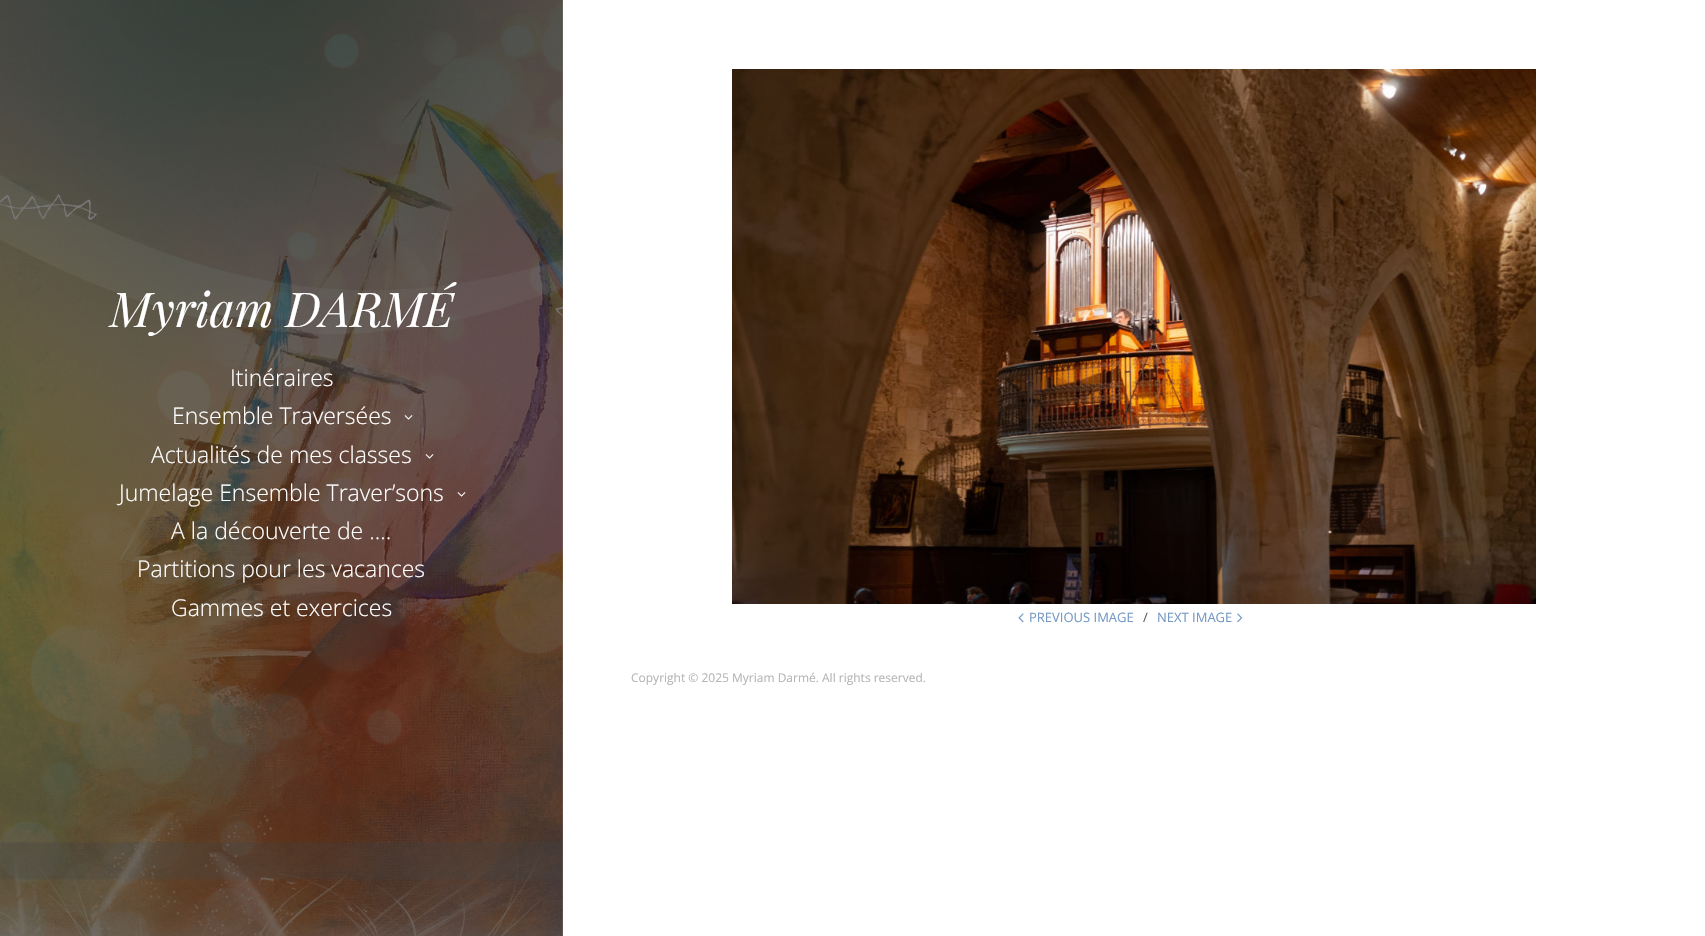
void draw(SkCanvas* canvas) {
	SkPaint paint;
	paint.setAntiAlias(true);
	canvas->clear(0xffffffff);
	canvas->drawImageRect(SkImages::DeferredFromEncodedData(SkData::MakeFromFileName("img1.png")), SkRect::MakeXYWH(0, 0, 563, 936), SkSamplingOptions());
	SkFont f1(fontMgr->matchFamilyStyle("Playfair Display", SkFontStyle::Italic()), 48);
	f1.setSubpixel(true);
	paint.setColor(0xffffffff);
	canvas->drawString("Myriam DARMÉ", 110, 327, f1, paint);
	SkFont f2(fontMgr->matchFamilyStyle("Open Sans", SkFontStyle(300, SkFontStyle::kNormal_Width, SkFontStyle::kUpright_Slant)), 23);
	f2.setSubpixel(true);
	canvas->drawString("Itinéraires", 230, 386, f2, paint);
	canvas->drawString("Ensemble Traversées", 172, 424, f2, paint);
	canvas->drawImageRect(SkImages::DeferredFromEncodedData(SkData::MakeFromFileName("img2.png")), SkRect::MakeXYWH(404, 415, 9, 5), SkSamplingOptions());
	canvas->drawString("Actualités de mes classes", 151, 463, f2, paint);
	canvas->drawImageRect(SkImages::DeferredFromEncodedData(SkData::MakeFromFileName("img3.png")), SkRect::MakeXYWH(425, 454, 9, 5), SkSamplingOptions());
	canvas->drawString("Jumelage Ensemble Traver’sons", 119, 501, f2, paint);
	canvas->drawImageRect(SkImages::DeferredFromEncodedData(SkData::MakeFromFileName("img4.png")), SkRect::MakeXYWH(457, 492, 9, 5), SkSamplingOptions());
	canvas->drawString("A la découverte de ….", 171, 539, f2, paint);
	canvas->drawString("Partitions pour les vacances", 137, 577, f2, paint);
	canvas->drawString("Gammes et exercices", 171, 616, f2, paint);
	canvas->drawImageRect(SkImages::DeferredFromEncodedData(SkData::MakeFromFileName("img5.png")), SkRect::MakeXYWH(732, 69, 804, 535), SkSamplingOptions());
	canvas->drawImageRect(SkImages::DeferredFromEncodedData(SkData::MakeFromFileName("img6.png")), SkRect::MakeXYWH(1018, 613, 6, 10), SkSamplingOptions());
	SkFont f3(fontMgr->matchFamilyStyle("Open Sans", SkFontStyle::Normal()), 13);
	f3.setSubpixel(true);
	paint.setColor(0xff7599c5);
	canvas->drawString("PREVIOUS IMAGE", 1029, 622, f3, paint);
	paint.setColor(0xff616161);
	canvas->drawString("∕", 1143, 622, f3, paint);
	paint.setColor(0xff7599c5);
	canvas->drawString("NEXT IMAGE", 1157, 622, f3, paint);
	canvas->drawImageRect(SkImages::DeferredFromEncodedData(SkData::MakeFromFileName("img7.png")), SkRect::MakeXYWH(1237, 613, 6, 10), SkSamplingOptions());
	SkFont f4(fontMgr->matchFamilyStyle("Open Sans", SkFontStyle::Normal()), 12);
	f4.setSubpixel(true);
	paint.setColor(0xffb5b5b5);
	canvas->drawString("Copyright © 2025 Myriam Darmé. All rights reserved.", 631, 682, f4, paint);
}
